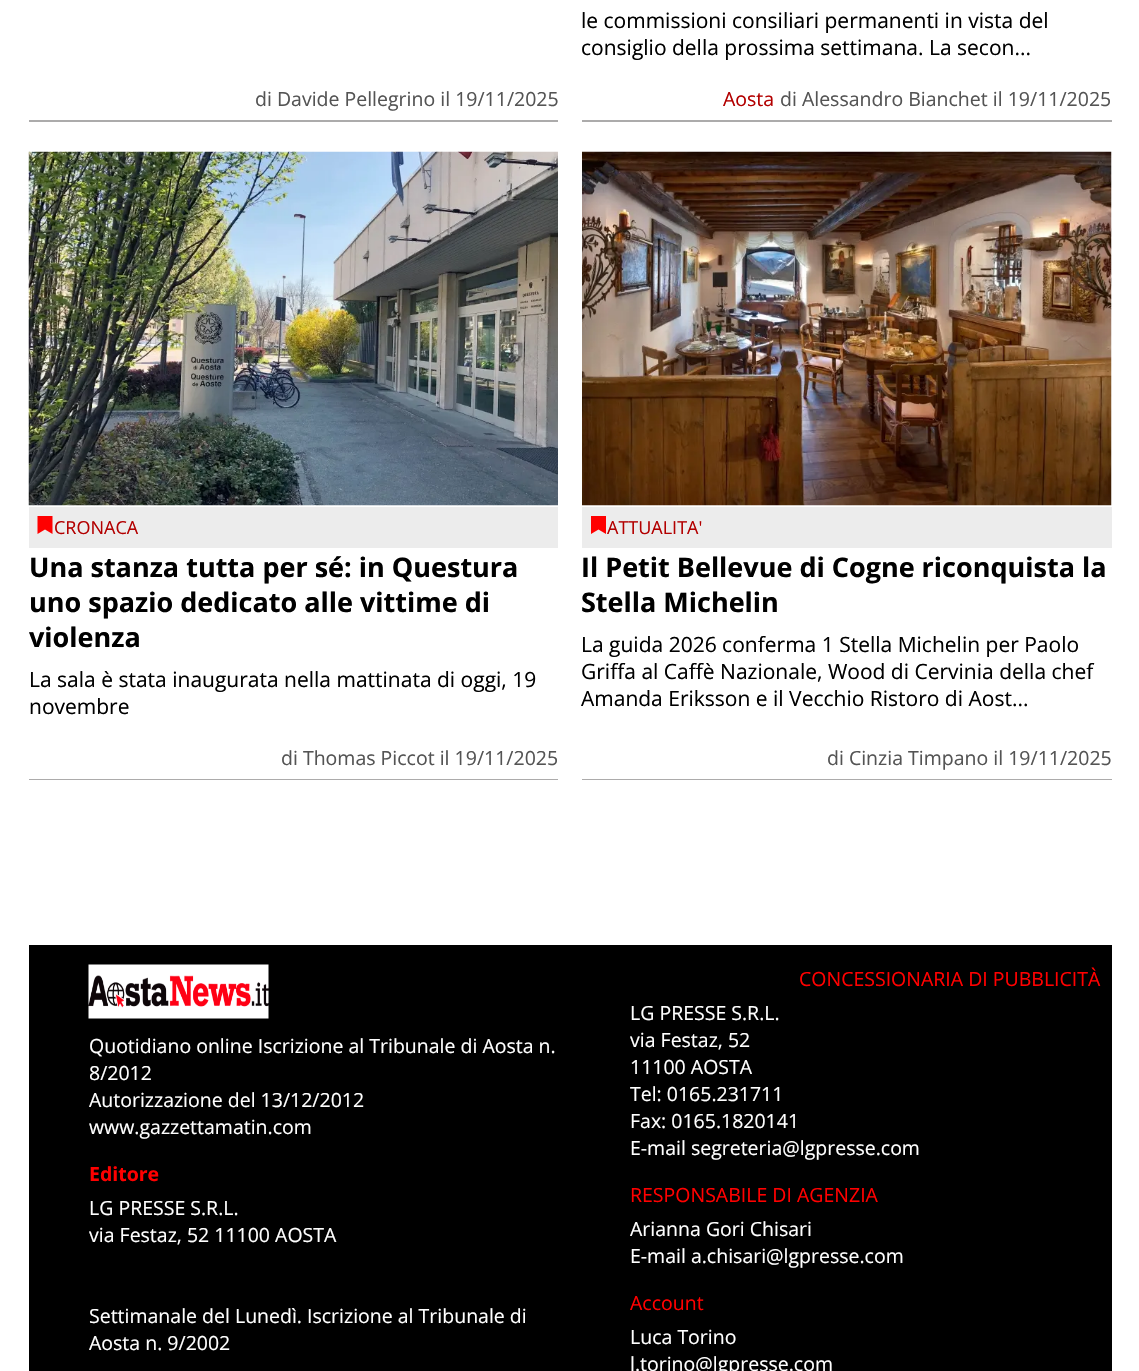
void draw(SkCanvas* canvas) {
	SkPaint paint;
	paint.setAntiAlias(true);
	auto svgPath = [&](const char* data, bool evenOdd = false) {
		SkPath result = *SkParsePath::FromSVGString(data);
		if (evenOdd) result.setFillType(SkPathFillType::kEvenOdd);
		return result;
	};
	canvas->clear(0xffffffff);
	paint.setColor(0xffacabab);
	canvas->drawRect(SkRect::MakeXYWH(29, 120, 529, 2), paint);
	SkFont f1(fontMgr->matchFamilyStyle("Open Sans", SkFontStyle::Normal()), 19.5);
	f1.setSubpixel(true);
	paint.setColor(0xff545454);
	canvas->drawString("di Davide Pellegrino il 19/11/2025", 255, 106, f1, paint);
	paint.setColor(0xffacabab);
	canvas->drawRect(SkRect::MakeXYWH(582, 120, 530, 2), paint);
	SkFont f2(fontMgr->matchFamilyStyle("Open Sans", SkFontStyle::Normal()), 21);
	f2.setSubpixel(true);
	paint.setColor(0xff000000);
	canvas->drawString("le commissioni consiliari permanenti in vista del", 581, 28, f2, paint);
	canvas->drawString("consiglio della prossima settimana. La secon...", 581, 55, f2, paint);
	paint.setColor(0xffb30000);
	canvas->drawString("Aosta", 723, 106, f1, paint);
	paint.setColor(0xff545454);
	canvas->drawString("di Alessandro Bianchet il 19/11/2025", 780, 106, f1, paint);
	canvas->drawImageRect(SkImages::DeferredFromEncodedData(SkData::MakeFromFileName("img1.png")), SkRect::MakeXYWH(28, 151, 530, 355), SkSamplingOptions());
	paint.setColor(0xffacabab);
	canvas->drawRect(SkRect::MakeXYWH(29, 779, 529, 1), paint);
	paint.setColor(0xffececec);
	canvas->drawRect(SkRect::MakeXYWH(29, 507, 529, 41), paint);
	paint.setColor(0xffff0000);
	canvas->drawPath(svgPath("M37.5 516H52.5V534L45 529.5L37.5 534Z"), paint);
	SkFont f3(fontMgr->matchFamilyStyle("Open Sans", SkFontStyle::Normal()), 18);
	f3.setSubpixel(true);
	paint.setColor(0xffb30000);
	canvas->drawString("CRONACA", 54, 534, f3, paint);
	SkFont f4(fontMgr->matchFamilyStyle("Open Sans", SkFontStyle::Bold()), 27);
	f4.setSubpixel(true);
	paint.setColor(0xff000000);
	canvas->drawString("Una stanza tutta per sé: in Questura", 29, 577, f4, paint);
	canvas->drawString("uno spazio dedicato alle vittime di", 29, 612, f4, paint);
	canvas->drawString("violenza", 29, 647, f4, paint);
	canvas->drawString("La sala è stata inaugurata nella mattinata di oggi, 19", 29, 687, f2, paint);
	canvas->drawString("novembre", 29, 714, f2, paint);
	paint.setColor(0xff545454);
	canvas->drawString("di Thomas Piccot il 19/11/2025", 281, 765, f1, paint);
	canvas->drawImageRect(SkImages::DeferredFromEncodedData(SkData::MakeFromFileName("img2.png")), SkRect::MakeXYWH(582, 151, 530, 355), SkSamplingOptions());
	paint.setColor(0xffacabab);
	canvas->drawRect(SkRect::MakeXYWH(582, 779, 530, 1), paint);
	paint.setColor(0xffececec);
	canvas->drawRect(SkRect::MakeXYWH(582, 507, 530, 41), paint);
	paint.setColor(0xffff0000);
	canvas->drawPath(svgPath("M591 516H606V534L598.5 529.5L591 534Z"), paint);
	paint.setColor(0xffb30000);
	canvas->drawString("ATTUALITA'", 607, 534, f3, paint);
	paint.setColor(0xff000000);
	canvas->drawString("Il Petit Bellevue di Cogne riconquista la", 581, 577, f4, paint);
	canvas->drawString("Stella Michelin", 581, 612, f4, paint);
	canvas->drawString("La guida 2026 conferma 1 Stella Michelin per Paolo", 581, 652, f2, paint);
	canvas->drawString("Griffa al Caffè Nazionale, Wood di Cervinia della chef", 581, 679, f2, paint);
	canvas->drawString("Amanda Eriksson e il Vecchio Ristoro di Aost...", 581, 706, f2, paint);
	paint.setColor(0xff545454);
	canvas->drawString("di Cinzia Timpano il 19/11/2025", 827, 765, f1, paint);
	paint.setColor(0xff000000);
	canvas->drawRect(SkRect::MakeXYWH(29, 945, 1083, 426), paint);
	canvas->drawImageRect(SkImages::DeferredFromEncodedData(SkData::MakeFromFileName("img3.png")), SkRect::MakeXYWH(88, 964, 181, 55), SkSamplingOptions());
	paint.setColor(0xffffffff);
	canvas->drawString("Quotidiano online Iscrizione al Tribunale di Aosta n.", 89, 1053, f1, paint);
	canvas->drawString("8/2012", 89, 1080, f1, paint);
	canvas->drawString("Autorizzazione del 13/12/2012", 89, 1107, f1, paint);
	canvas->drawString("www.gazzettamatin.com", 89, 1134, f1, paint);
	SkFont f5(fontMgr->matchFamilyStyle("Open Sans", SkFontStyle::Bold()), 19.5);
	f5.setSubpixel(true);
	paint.setColor(0xffff0000);
	canvas->drawString("Editore", 89, 1181, f5, paint);
	paint.setColor(0xffffffff);
	canvas->drawString("LG PRESSE S.R.L.", 89, 1215, f1, paint);
	canvas->drawString("via Festaz, 52 11100 AOSTA", 89, 1242, f1, paint);
	canvas->drawString("Settimanale del Lunedì. Iscrizione al Tribunale di", 89, 1323, f1, paint);
	canvas->drawString("Aosta n. 9/2002", 89, 1350, f1, paint);
	paint.setColor(0xffff0000);
	canvas->drawString("CONCESSIONARIA DI PUBBLICITÀ", 799, 986, f1, paint);
	paint.setColor(0xffffffff);
	canvas->drawString("LG PRESSE S.R.L.", 630, 1020, f1, paint);
	canvas->drawString("via Festaz, 52", 630, 1047, f1, paint);
	canvas->drawString("11100 AOSTA", 630, 1074, f1, paint);
	canvas->drawString("Tel: 0165.231711", 630, 1101, f1, paint);
	canvas->drawString("Fax: 0165.1820141", 630, 1128, f1, paint);
	canvas->drawString("E-mail segreteria@lgpresse.com", 630, 1155, f1, paint);
	paint.setColor(0xffff0000);
	canvas->drawString("RESPONSABILE DI AGENZIA", 630, 1202, f1, paint);
	paint.setColor(0xffffffff);
	canvas->drawString("Arianna Gori Chisari", 630, 1236, f1, paint);
	canvas->drawString("E-mail a.chisari@lgpresse.com", 630, 1263, f1, paint);
	paint.setColor(0xffff0000);
	canvas->drawString("Account", 630, 1310, f1, paint);
	paint.setColor(0xffffffff);
	canvas->drawString("Luca Torino", 630, 1344, f1, paint);
	canvas->drawString("l.torino@lgpresse.com", 630, 1371, f1, paint);
}
